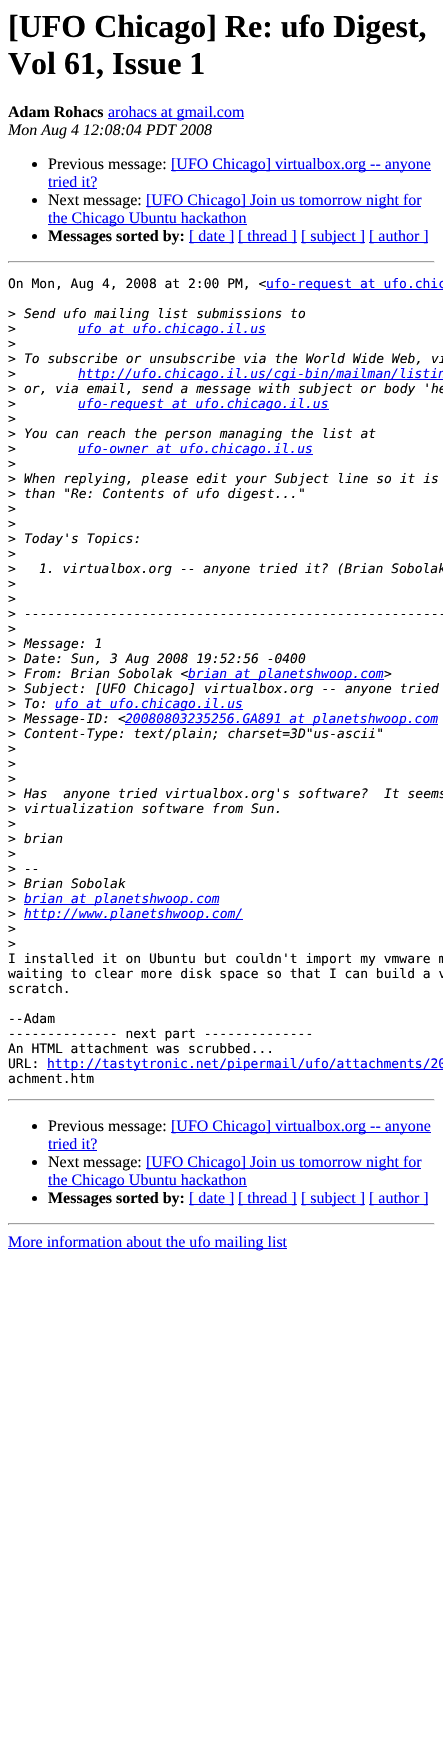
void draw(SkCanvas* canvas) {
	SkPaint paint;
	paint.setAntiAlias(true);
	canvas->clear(0xffffffff);
	SkFont f1(fontMgr->matchFamilyStyle("Liberation Serif", SkFontStyle::Bold()), 32);
	f1.setSubpixel(true);
	paint.setColor(0xff000000);
	canvas->drawString("[UFO Chicago] Re: ufo Digest,", 8, 37, f1, paint);
	canvas->drawString("Vol 61, Issue 1", 8, 74, f1, paint);
	SkFont f2(fontMgr->matchFamilyStyle("Liberation Serif", SkFontStyle::Bold()), 16);
	f2.setSubpixel(true);
	canvas->drawString("Adam Rohacs", 8, 117, f2, paint);
	paint.setColor(0xff0000ee);
	canvas->drawRect(SkRect::MakeXYWH(108, 118, 136, 1), paint);
	SkFont f3(fontMgr->matchFamilyStyle("Liberation Serif", SkFontStyle::Normal()), 16);
	f3.setSubpixel(true);
	canvas->drawString("arohacs at gmail.com", 108, 117, f3, paint);
	SkFont f4(fontMgr->matchFamilyStyle("Liberation Serif", SkFontStyle::Italic()), 16);
	f4.setSubpixel(true);
	paint.setColor(0xff000000);
	canvas->drawString("Mon Aug 4 12:08:04 PDT 2008", 8, 135, f4, paint);
	canvas->drawCircle(34.5, 164.5, 2.5, paint);
	canvas->drawString("Previous message:", 48, 169, f3, paint);
	paint.setColor(0xff0000ee);
	canvas->drawRect(SkRect::MakeXYWH(171, 170, 260, 1), paint);
	canvas->drawString("[UFO Chicago] virtualbox.org -- anyone", 171, 169, f3, paint);
	canvas->drawString("tried it?", 48, 187, f3, paint);
	canvas->drawRect(SkRect::MakeXYWH(48, 188, 49, 1), paint);
	paint.setColor(0xff000000);
	canvas->drawCircle(34.5, 200.5, 2.5, paint);
	canvas->drawString("Next message:", 48, 205, f3, paint);
	paint.setColor(0xff0000ee);
	canvas->drawRect(SkRect::MakeXYWH(146, 206, 275, 1), paint);
	canvas->drawString("[UFO Chicago] Join us tomorrow night for", 146, 205, f3, paint);
	canvas->drawRect(SkRect::MakeXYWH(48, 224, 199, 1), paint);
	canvas->drawString("the Chicago Ubuntu hackathon", 48, 223, f3, paint);
	paint.setColor(0xff000000);
	canvas->drawCircle(34.5, 236.5, 2.5, paint);
	canvas->drawString("Messages sorted by:", 48, 241, f2, paint);
	paint.setColor(0xff0000ee);
	canvas->drawRect(SkRect::MakeXYWH(189, 242, 45, 1), paint);
	canvas->drawString("[ date ]", 189, 241, f3, paint);
	canvas->drawRect(SkRect::MakeXYWH(238, 242, 59, 1), paint);
	canvas->drawString("[ thread ]", 238, 241, f3, paint);
	canvas->drawRect(SkRect::MakeXYWH(301, 242, 64, 1), paint);
	canvas->drawString("[ subject ]", 301, 241, f3, paint);
	canvas->drawRect(SkRect::MakeXYWH(369, 242, 59, 1), paint);
	canvas->drawString("[ author ]", 369, 241, f3, paint);
	paint.setColor(0xff9f9f9f);
	canvas->drawRect(SkRect::MakeXYWH(8, 261, 427, 1), paint);
	paint.setColor(0xffeeeeee);
	canvas->drawRect(SkRect::MakeXYWH(434, 261, 1, 2), paint);
	canvas->drawRect(SkRect::MakeXYWH(8, 262, 427, 1), paint);
	paint.setColor(0xff9f9f9f);
	canvas->drawRect(SkRect::MakeXYWH(8, 261, 1, 2), paint);
	SkFont f5(fontMgr->matchFamilyStyle("DejaVu Sans Mono", SkFontStyle::Normal()), 13);
	f5.setSubpixel(true);
	paint.setColor(0xff000000);
	canvas->drawString("On Mon, Aug 4, 2008 at 2:00 PM, <", 8, 288, f5, paint);
	paint.setColor(0xff0000ee);
	canvas->drawRect(SkRect::MakeXYWH(266, 289, 177, 1), paint);
	canvas->drawString("ufo-request at ufo.chic", 266, 288, f5, paint);
	paint.setColor(0xff000000);
	canvas->drawString(">", 8, 318, f5, paint);
	SkFont f6(fontMgr->matchFamilyStyle("DejaVu Sans Mono", SkFontStyle::Italic()), 13);
	f6.setSubpixel(true);
	canvas->drawString("Send ufo mailing list submissions to", 24, 318, f6, paint);
	canvas->drawString(">", 8, 333, f5, paint);
	paint.setColor(0xff0000ee);
	canvas->drawRect(SkRect::MakeXYWH(78, 334, 188, 1), paint);
	canvas->drawString("ufo at ufo.chicago.il.us", 78, 333, f6, paint);
	paint.setColor(0xff000000);
	canvas->drawString(">", 8, 348, f5, paint);
	canvas->drawString(">", 8, 363, f5, paint);
	canvas->drawString("To subscribe or unsubscribe via the World Wide Web, vi", 24, 363, f6, paint);
	canvas->drawString(">", 8, 378, f5, paint);
	paint.setColor(0xff0000ee);
	canvas->drawRect(SkRect::MakeXYWH(78, 379, 365, 1), paint);
	canvas->drawString("http://ufo.chicago.il.us/cgi-bin/mailman/listin", 78, 378, f6, paint);
	paint.setColor(0xff000000);
	canvas->drawString(">", 8, 393, f5, paint);
	canvas->drawString("or, via email, send a message with subject or body 'he", 24, 393, f6, paint);
	canvas->drawString(">", 8, 408, f5, paint);
	paint.setColor(0xff0000ee);
	canvas->drawRect(SkRect::MakeXYWH(78, 409, 251, 1), paint);
	canvas->drawString("ufo-request at ufo.chicago.il.us", 78, 408, f6, paint);
	paint.setColor(0xff000000);
	canvas->drawString(">", 8, 423, f5, paint);
	canvas->drawString(">", 8, 438, f5, paint);
	canvas->drawString("You can reach the person managing the list at", 24, 438, f6, paint);
	canvas->drawString(">", 8, 453, f5, paint);
	paint.setColor(0xff0000ee);
	canvas->drawRect(SkRect::MakeXYWH(78, 454, 235, 1), paint);
	canvas->drawString("ufo-owner at ufo.chicago.il.us", 78, 453, f6, paint);
	paint.setColor(0xff000000);
	canvas->drawString(">", 8, 468, f5, paint);
	canvas->drawString(">", 8, 483, f5, paint);
	canvas->drawString("When replying, please edit your Subject line so it is", 24, 483, f6, paint);
	canvas->drawString(">", 8, 498, f5, paint);
	canvas->drawString("than \"Re: Contents of ufo digest...\"", 24, 498, f6, paint);
	canvas->drawString(">", 8, 513, f5, paint);
	canvas->drawString(">", 8, 528, f5, paint);
	canvas->drawString(">", 8, 543, f5, paint);
	canvas->drawString("Today's Topics:", 24, 543, f6, paint);
	canvas->drawString(">", 8, 558, f5, paint);
	canvas->drawString(">", 8, 573, f5, paint);
	canvas->drawString("1. virtualbox.org -- anyone tried it? (Brian Sobolak", 39, 573, f6, paint);
	canvas->drawString(">", 8, 588, f5, paint);
	canvas->drawString(">", 8, 603, f5, paint);
	canvas->drawString(">", 8, 618, f5, paint);
	canvas->drawString("------------------------------------------------------", 24, 618, f6, paint);
	canvas->drawString(">", 8, 633, f5, paint);
	canvas->drawString(">", 8, 648, f5, paint);
	canvas->drawString("Message: 1", 24, 648, f6, paint);
	canvas->drawString(">", 8, 663, f5, paint);
	canvas->drawString("Date: Sun, 3 Aug 2008 19:52:56 -0400", 24, 663, f6, paint);
	canvas->drawString(">", 8, 678, f5, paint);
	canvas->drawString("From: Brian Sobolak <", 24, 678, f6, paint);
	paint.setColor(0xff0000ee);
	canvas->drawRect(SkRect::MakeXYWH(188, 679, 196, 1), paint);
	canvas->drawString("brian at planetshwoop.com", 188, 678, f6, paint);
	paint.setColor(0xff000000);
	canvas->drawString(">", 384, 678, f6, paint);
	canvas->drawString(">", 8, 693, f5, paint);
	canvas->drawString("Subject: [UFO Chicago] virtualbox.org -- anyone tried", 24, 693, f6, paint);
	canvas->drawString(">", 8, 708, f5, paint);
	canvas->drawString("To:", 24, 708, f6, paint);
	paint.setColor(0xff0000ee);
	canvas->drawRect(SkRect::MakeXYWH(55, 709, 188, 1), paint);
	canvas->drawString("ufo at ufo.chicago.il.us", 55, 708, f6, paint);
	paint.setColor(0xff000000);
	canvas->drawString(">", 8, 723, f5, paint);
	canvas->drawString("Message-ID: <", 24, 723, f6, paint);
	paint.setColor(0xff0000ee);
	canvas->drawRect(SkRect::MakeXYWH(125, 724, 313, 1), paint);
	canvas->drawString("20080803235256.GA891 at planetshwoop.com", 125, 723, f6, paint);
	paint.setColor(0xff000000);
	canvas->drawString(">", 8, 738, f5, paint);
	canvas->drawString("Content-Type: text/plain; charset=3D\"us-ascii\"", 24, 738, f6, paint);
	canvas->drawString(">", 8, 753, f5, paint);
	canvas->drawString(">", 8, 768, f5, paint);
	canvas->drawString(">", 8, 783, f5, paint);
	canvas->drawString(">", 8, 798, f5, paint);
	canvas->drawString("Has  anyone tried virtualbox.org's software?  It seems", 24, 798, f6, paint);
	canvas->drawString(">", 8, 813, f5, paint);
	canvas->drawString("virtualization software from Sun.", 24, 813, f6, paint);
	canvas->drawString(">", 8, 828, f5, paint);
	canvas->drawString(">", 8, 843, f5, paint);
	canvas->drawString("brian", 24, 843, f6, paint);
	canvas->drawString(">", 8, 858, f5, paint);
	canvas->drawString(">", 8, 873, f5, paint);
	canvas->drawString("--", 24, 873, f6, paint);
	canvas->drawString(">", 8, 888, f5, paint);
	canvas->drawString("Brian Sobolak", 24, 888, f6, paint);
	canvas->drawString(">", 8, 903, f5, paint);
	paint.setColor(0xff0000ee);
	canvas->drawRect(SkRect::MakeXYWH(24, 904, 195, 1), paint);
	canvas->drawString("brian at planetshwoop.com", 24, 903, f6, paint);
	paint.setColor(0xff000000);
	canvas->drawString(">", 8, 918, f5, paint);
	paint.setColor(0xff0000ee);
	canvas->drawRect(SkRect::MakeXYWH(24, 919, 219, 1), paint);
	canvas->drawString("http://www.planetshwoop.com/", 24, 918, f6, paint);
	paint.setColor(0xff000000);
	canvas->drawString(">", 8, 933, f5, paint);
	canvas->drawString(">", 8, 948, f5, paint);
	canvas->drawString("I installed it on Ubuntu but couldn't import my vmware m", 8, 963, f5, paint);
	canvas->drawString("waiting to clear more disk space so that I can build a v", 8, 978, f5, paint);
	canvas->drawString("scratch.", 8, 993, f5, paint);
	canvas->drawString("--Adam", 8, 1023, f5, paint);
	canvas->drawString("-------------- next part --------------", 8, 1038, f5, paint);
	canvas->drawString("An HTML attachment was scrubbed...", 8, 1053, f5, paint);
	canvas->drawString("URL:", 8, 1068, f5, paint);
	paint.setColor(0xff0000ee);
	canvas->drawRect(SkRect::MakeXYWH(47, 1069, 396, 1), paint);
	canvas->drawString("http://tastytronic.net/pipermail/ufo/attachments/20", 47, 1068, f5, paint);
	paint.setColor(0xff000000);
	canvas->drawString("achment.htm", 8, 1083, f5, paint);
	paint.setColor(0xff9f9f9f);
	canvas->drawRect(SkRect::MakeXYWH(8, 1099, 427, 1), paint);
	paint.setColor(0xffeeeeee);
	canvas->drawRect(SkRect::MakeXYWH(434, 1099, 1, 2), paint);
	canvas->drawRect(SkRect::MakeXYWH(8, 1100, 427, 1), paint);
	paint.setColor(0xff9f9f9f);
	canvas->drawRect(SkRect::MakeXYWH(8, 1099, 1, 2), paint);
	paint.setColor(0xff000000);
	canvas->drawCircle(34.5, 1126.5, 2.5, paint);
	canvas->drawString("Previous message:", 48, 1131, f3, paint);
	paint.setColor(0xff0000ee);
	canvas->drawRect(SkRect::MakeXYWH(171, 1132, 260, 1), paint);
	canvas->drawString("[UFO Chicago] virtualbox.org -- anyone", 171, 1131, f3, paint);
	canvas->drawString("tried it?", 48, 1149, f3, paint);
	canvas->drawRect(SkRect::MakeXYWH(48, 1150, 49, 1), paint);
	paint.setColor(0xff000000);
	canvas->drawCircle(34.5, 1162.5, 2.5, paint);
	canvas->drawString("Next message:", 48, 1167, f3, paint);
	paint.setColor(0xff0000ee);
	canvas->drawRect(SkRect::MakeXYWH(146, 1168, 275, 1), paint);
	canvas->drawString("[UFO Chicago] Join us tomorrow night for", 146, 1167, f3, paint);
	canvas->drawRect(SkRect::MakeXYWH(48, 1186, 199, 1), paint);
	canvas->drawString("the Chicago Ubuntu hackathon", 48, 1185, f3, paint);
	paint.setColor(0xff000000);
	canvas->drawCircle(34.5, 1198.5, 2.5, paint);
	canvas->drawString("Messages sorted by:", 48, 1203, f2, paint);
	paint.setColor(0xff0000ee);
	canvas->drawRect(SkRect::MakeXYWH(189, 1204, 45, 1), paint);
	canvas->drawString("[ date ]", 189, 1203, f3, paint);
	canvas->drawRect(SkRect::MakeXYWH(238, 1204, 59, 1), paint);
	canvas->drawString("[ thread ]", 238, 1203, f3, paint);
	canvas->drawRect(SkRect::MakeXYWH(301, 1204, 64, 1), paint);
	canvas->drawString("[ subject ]", 301, 1203, f3, paint);
	canvas->drawRect(SkRect::MakeXYWH(369, 1204, 59, 1), paint);
	canvas->drawString("[ author ]", 369, 1203, f3, paint);
	paint.setColor(0xff9f9f9f);
	canvas->drawRect(SkRect::MakeXYWH(8, 1223, 427, 1), paint);
	paint.setColor(0xffeeeeee);
	canvas->drawRect(SkRect::MakeXYWH(434, 1223, 1, 2), paint);
	canvas->drawRect(SkRect::MakeXYWH(8, 1224, 427, 1), paint);
	paint.setColor(0xff9f9f9f);
	canvas->drawRect(SkRect::MakeXYWH(8, 1223, 1, 2), paint);
	paint.setColor(0xff0000ee);
	canvas->drawRect(SkRect::MakeXYWH(8, 1248, 279, 1), paint);
	canvas->drawString("More information about the ufo mailing list", 8, 1247, f3, paint);
}
